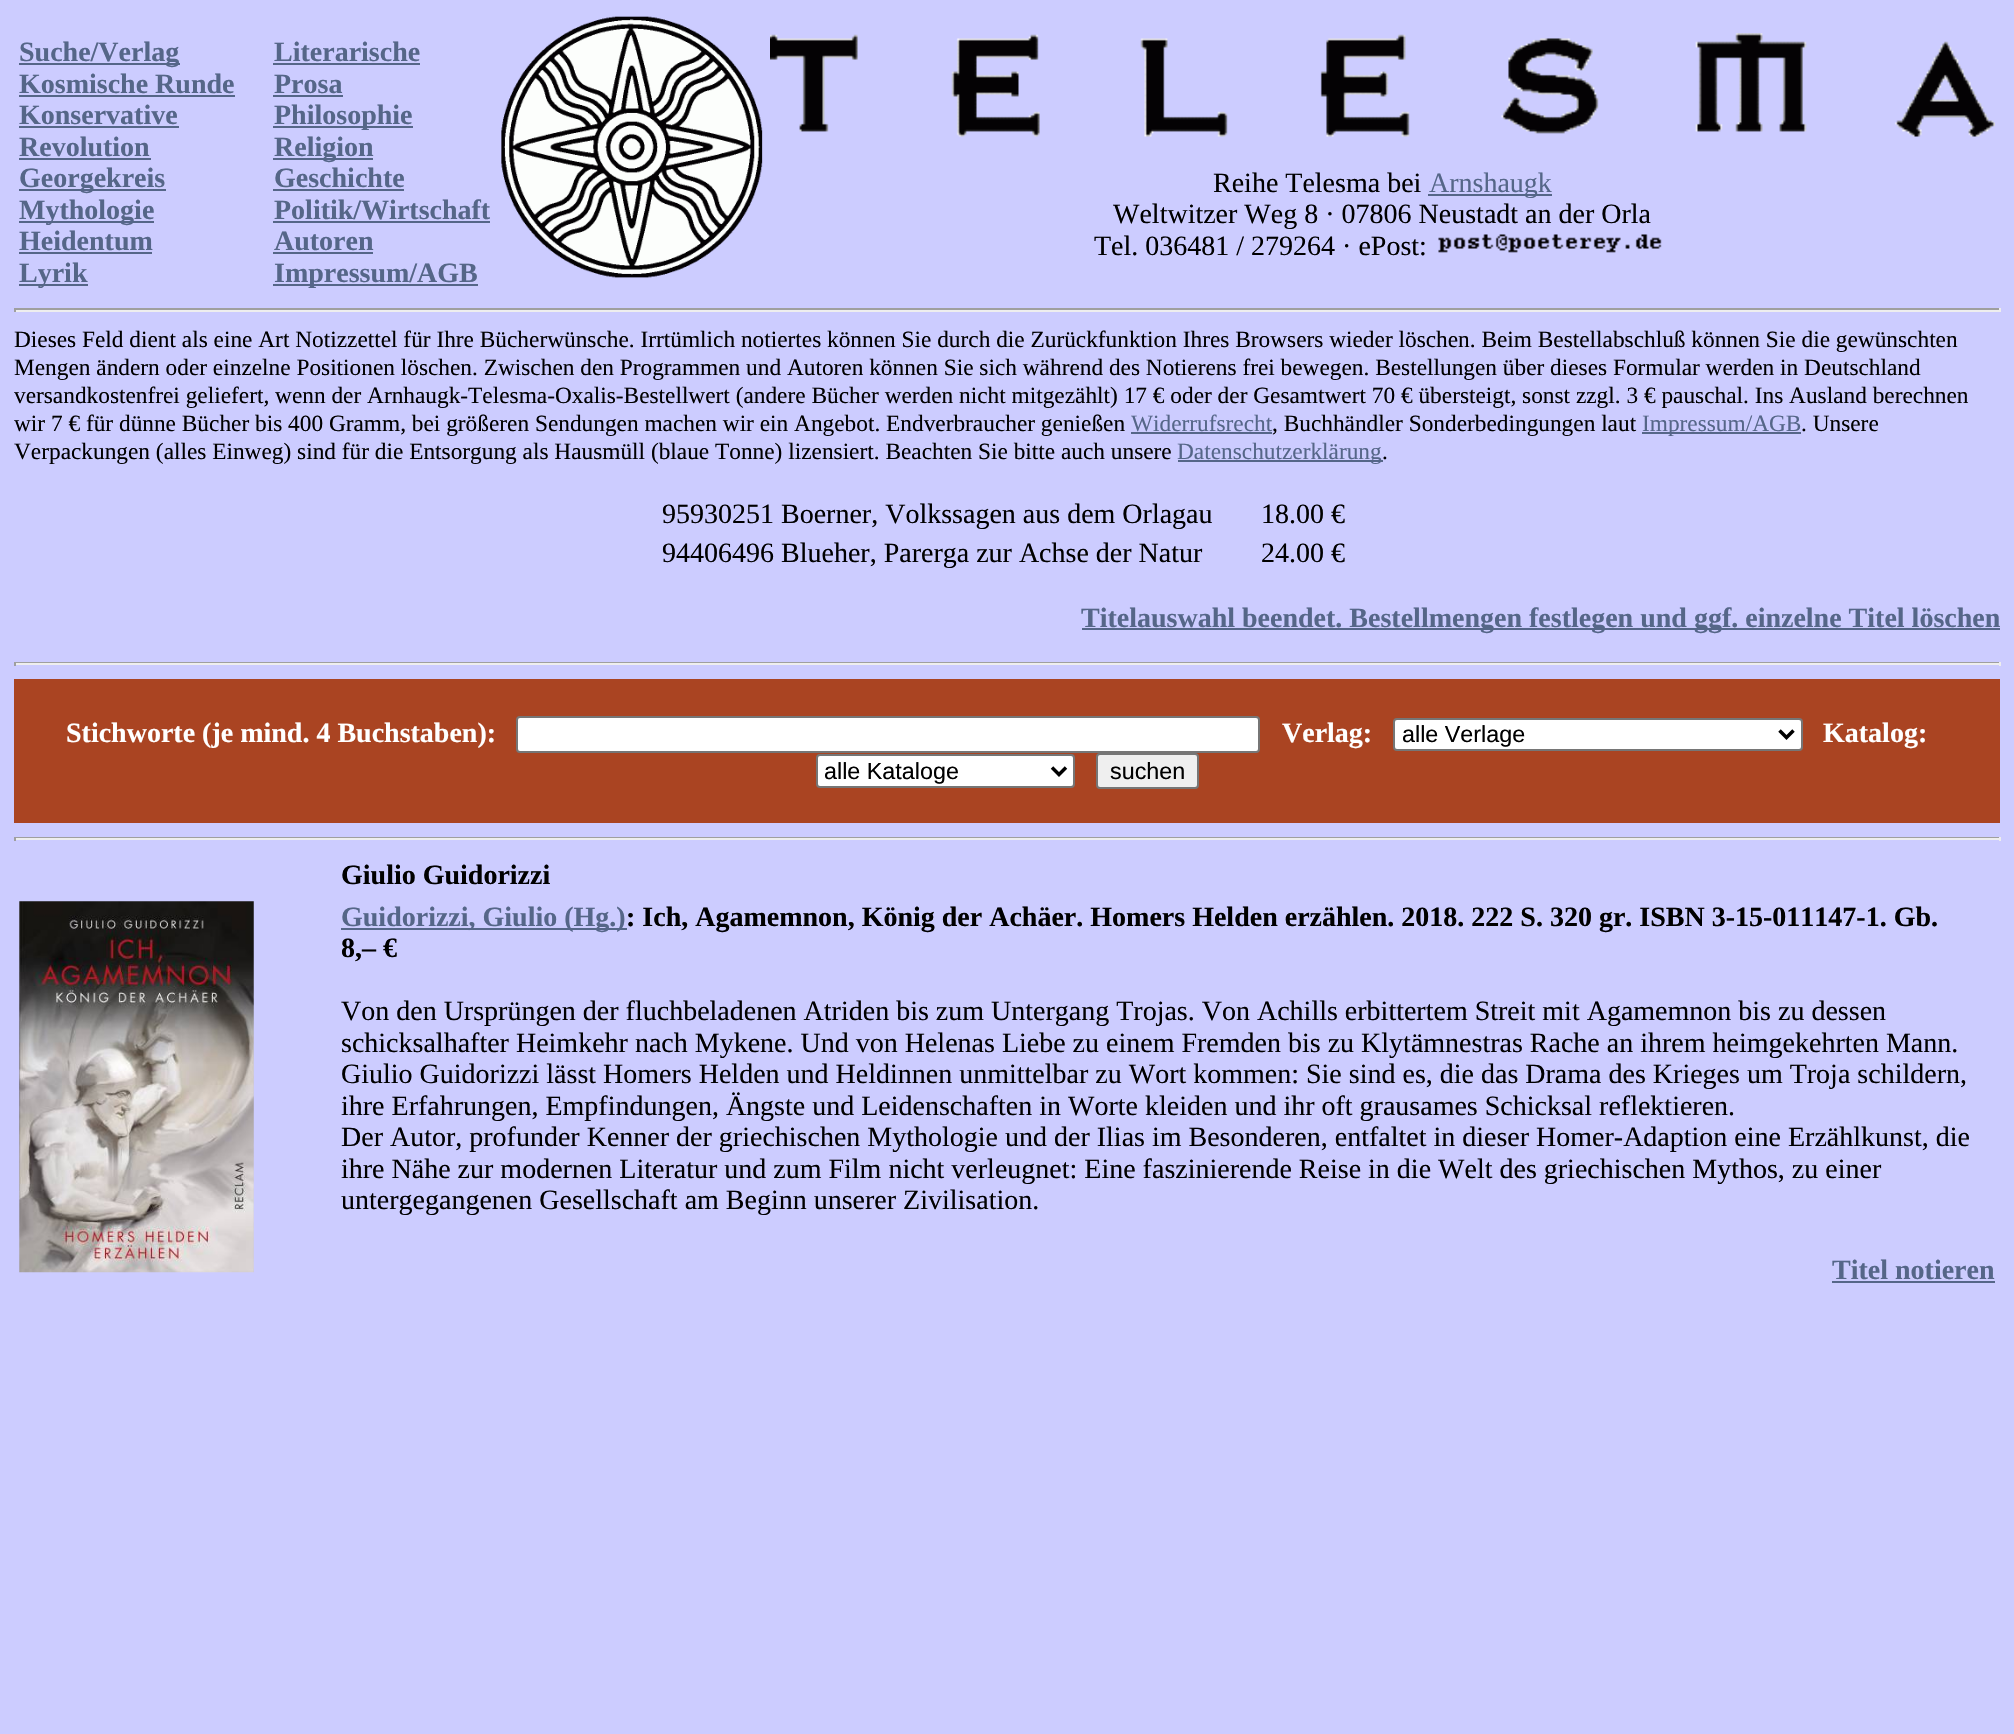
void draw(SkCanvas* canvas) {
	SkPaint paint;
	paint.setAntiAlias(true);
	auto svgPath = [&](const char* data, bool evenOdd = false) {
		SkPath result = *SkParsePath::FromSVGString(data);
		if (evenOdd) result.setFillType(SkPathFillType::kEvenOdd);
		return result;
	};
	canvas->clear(0xffccccff);
	paint.setColor(0xff556688);
	canvas->drawRect(SkRect::MakeXYWH(19, 63, 161, 2), paint);
	SkFont f1(fontMgr->matchFamilyStyle("Liberation Serif", SkFontStyle::Bold()), 28);
	f1.setSubpixel(true);
	canvas->drawString("Suche/Verlag", 19, 61, f1, paint);
	canvas->drawString("Kosmische Runde", 19, 93, f1, paint);
	canvas->drawRect(SkRect::MakeXYWH(19, 95, 216, 2), paint);
	canvas->drawString("Konservative", 19, 124, f1, paint);
	canvas->drawRect(SkRect::MakeXYWH(19, 126, 160, 2), paint);
	canvas->drawString("Revolution", 19, 156, f1, paint);
	canvas->drawRect(SkRect::MakeXYWH(19, 158, 132, 2), paint);
	canvas->drawRect(SkRect::MakeXYWH(19, 189, 147, 2), paint);
	canvas->drawString("Georgekreis", 19, 187, f1, paint);
	canvas->drawRect(SkRect::MakeXYWH(19, 221, 135, 2), paint);
	canvas->drawString("Mythologie", 19, 219, f1, paint);
	canvas->drawString("Heidentum", 19, 250, f1, paint);
	canvas->drawRect(SkRect::MakeXYWH(19, 252, 133, 2), paint);
	canvas->drawRect(SkRect::MakeXYWH(19, 284, 69, 2), paint);
	canvas->drawString("Lyrik", 19, 282, f1, paint);
	canvas->drawString("Literarische", 274, 61, f1, paint);
	canvas->drawRect(SkRect::MakeXYWH(273, 63, 147, 2), paint);
	canvas->drawString("Prosa", 274, 93, f1, paint);
	canvas->drawRect(SkRect::MakeXYWH(273, 95, 70, 2), paint);
	canvas->drawRect(SkRect::MakeXYWH(273, 126, 140, 2), paint);
	canvas->drawString("Philosophie", 274, 124, f1, paint);
	canvas->drawRect(SkRect::MakeXYWH(273, 158, 100, 2), paint);
	canvas->drawString("Religion", 274, 156, f1, paint);
	canvas->drawString("Geschichte", 274, 187, f1, paint);
	canvas->drawRect(SkRect::MakeXYWH(273, 189, 131, 2), paint);
	canvas->drawString("Politik/Wirtschaft", 274, 219, f1, paint);
	canvas->drawRect(SkRect::MakeXYWH(273, 221, 217, 2), paint);
	canvas->drawString("Autoren", 274, 250, f1, paint);
	canvas->drawRect(SkRect::MakeXYWH(273, 252, 100, 2), paint);
	canvas->drawRect(SkRect::MakeXYWH(273, 284, 205, 2), paint);
	canvas->drawString("Impressum/AGB", 274, 282, f1, paint);
	canvas->drawImageRect(SkImages::DeferredFromEncodedData(SkData::MakeFromFileName("img1.png")), SkRect::MakeXYWH(501, 16, 262, 262), SkSamplingOptions());
	canvas->drawImageRect(SkImages::DeferredFromEncodedData(SkData::MakeFromFileName("img2.png")), SkRect::MakeXYWH(770, 33, 1225, 104), SkSamplingOptions());
	SkFont f2(fontMgr->matchFamilyStyle("Liberation Serif", SkFontStyle::Normal()), 28);
	f2.setSubpixel(true);
	paint.setColor(0xff000000);
	canvas->drawString("Reihe Telesma bei", 1213, 192, f2, paint);
	paint.setColor(0xff556688);
	canvas->drawRect(SkRect::MakeXYWH(1428, 194, 124, 2), paint);
	canvas->drawString("Arnshaugk", 1429, 192, f2, paint);
	paint.setColor(0xff000000);
	canvas->drawString("Weltwitzer Weg 8 · 07806 Neustadt an der Orla", 1113, 223, f2, paint);
	canvas->drawString("Tel. 036481 / 279264 · ePost:", 1094, 255, f2, paint);
	canvas->drawImageRect(SkImages::DeferredFromEncodedData(SkData::MakeFromFileName("img3.png")), SkRect::MakeXYWH(1438, 234, 224, 19), SkSamplingOptions());
	paint.setColor(0xff9f9f9f);
	canvas->drawRect(SkRect::MakeXYWH(14, 308, 1986, 2), paint);
	paint.setColor(0xffeeeeee);
	canvas->drawRect(SkRect::MakeXYWH(1999, 308, 2, 4), paint);
	canvas->drawRect(SkRect::MakeXYWH(14, 310, 1986, 2), paint);
	paint.setColor(0xff9f9f9f);
	canvas->drawRect(SkRect::MakeXYWH(14, 308, 2, 4), paint);
	SkFont f3(fontMgr->matchFamilyStyle("Liberation Serif", SkFontStyle::Normal()), 23.33);
	f3.setSubpixel(true);
	paint.setColor(0xff000000);
	canvas->drawString("Dieses Feld dient als eine Art Notizzettel für Ihre Bücherwünsche. Irrtümlich notiertes können Sie durch die Zurückfunktion Ihres Browsers wieder löschen. Beim Bestellabschluß können Sie die gewünschten", 14, 347, f3, paint);
	canvas->drawString("Mengen ändern oder einzelne Positionen löschen. Zwischen den Programmen und Autoren können Sie sich während des Notierens frei bewegen. Bestellungen über dieses Formular werden in Deutschland", 14, 375, f3, paint);
	canvas->drawString("versandkostenfrei geliefert, wenn der Arnhaugk-Telesma-Oxalis-Bestellwert (andere Bücher werden nicht mitgezählt) 17 € oder der Gesamtwert 70 € übersteigt, sonst zzgl. 3 € pauschal. Ins Ausland berechnen", 14, 403, f3, paint);
	canvas->drawString("wir 7 € für dünne Bücher bis 400 Gramm, bei größeren Sendungen machen wir ein Angebot. Endverbraucher genießen", 14, 431, f3, paint);
	paint.setColor(0xff556688);
	canvas->drawString("Widerrufsrecht", 1131, 431, f3, paint);
	paint.setColor(0xff000000);
	canvas->drawString(", Buchhändler Sonderbedingungen laut", 1272, 431, f3, paint);
	paint.setColor(0xff556688);
	canvas->drawRect(SkRect::MakeXYWH(1131, 432, 141, 2), paint);
	canvas->drawRect(SkRect::MakeXYWH(1642, 432, 159, 2), paint);
	canvas->drawString("Impressum/AGB", 1642, 431, f3, paint);
	paint.setColor(0xff000000);
	canvas->drawString(". Unsere", 1801, 431, f3, paint);
	canvas->drawString("Verpackungen (alles Einweg) sind für die Entsorgung als Hausmüll (blaue Tonne) lizensiert. Beachten Sie bitte auch unsere", 14, 459, f3, paint);
	paint.setColor(0xff556688);
	canvas->drawRect(SkRect::MakeXYWH(1178, 460, 205, 2), paint);
	canvas->drawString("Datenschutzerklärung", 1177, 459, f3, paint);
	paint.setColor(0xff000000);
	canvas->drawString(".", 1382, 459, f3, paint);
	canvas->drawString("95930251 Boerner, Volkssagen aus dem Orlagau", 662, 523, f2, paint);
	canvas->drawString("18.00 €", 1261, 523, f2, paint);
	canvas->drawString("94406496 Blueher, Parerga zur Achse der Natur", 662, 562, f2, paint);
	canvas->drawString("24.00 €", 1261, 562, f2, paint);
	paint.setColor(0xff556688);
	canvas->drawRect(SkRect::MakeXYWH(1082, 628, 918, 2), paint);
	canvas->drawString("Titelauswahl beendet. Bestellmengen festlegen und ggf. einzelne Titel löschen", 1081, 627, f1, paint);
	paint.setColor(0xff9f9f9f);
	canvas->drawRect(SkRect::MakeXYWH(14, 662, 1986, 1), paint);
	paint.setColor(0xffeeeeee);
	canvas->drawRect(SkRect::MakeXYWH(1999, 662, 2, 4), paint);
	canvas->drawRect(SkRect::MakeXYWH(14, 663, 1986, 2), paint);
	paint.setColor(0xff9f9f9f);
	canvas->drawRect(SkRect::MakeXYWH(14, 662, 2, 4), paint);
	paint.setColor(0xffaa4422);
	canvas->drawRect(SkRect::MakeXYWH(14, 679, 1986, 144), paint);
	paint.setColor(0xffffffff);
	canvas->drawString("Stichworte (je mind. 4 Buchstaben):", 66, 742, f1, paint);
	canvas->drawRoundRect(SkRect::MakeXYWH(517, 717, 742, 35), 3, 3, paint);
	paint.setStroke(true);
	paint.setStrokeWidth(2);
	paint.setColor(0xff767676);
	canvas->drawRoundRect(SkRect::MakeXYWH(517, 717, 742, 35), 3, 3, paint);
	paint.setStroke(false);
	paint.setColor(0xffffffff);
	canvas->drawString("Verlag:", 1282, 742, f1, paint);
	canvas->drawRoundRect(SkRect::MakeXYWH(1394, 719, 408, 31), 3, 3, paint);
	paint.setStroke(true);
	paint.setColor(0xff767676);
	canvas->drawRoundRect(SkRect::MakeXYWH(1394, 719, 408, 31), 3, 3, paint);
	paint.setStrokeWidth(3.5);
	paint.setColor(0xff000000);
	canvas->drawPath(svgPath("M1779.5 730.5L1786.5 737.5L1793.5 730.5"), paint);
	SkFont f4(fontMgr->matchFamilyStyle("Liberation Sans", SkFontStyle::Normal()), 23.33);
	f4.setSubpixel(true);
	paint.setStroke(false);
	canvas->drawString("alle Verlage", 1402, 742, f4, paint);
	paint.setColor(0xffffffff);
	canvas->drawString("Katalog:", 1823, 742, f1, paint);
	canvas->drawRoundRect(SkRect::MakeXYWH(817, 755, 257, 32), 3, 3, paint);
	paint.setStroke(true);
	paint.setStrokeWidth(2);
	paint.setColor(0xff767676);
	canvas->drawRoundRect(SkRect::MakeXYWH(817, 755, 257, 32), 3, 3, paint);
	paint.setStrokeWidth(3.5);
	paint.setColor(0xff000000);
	canvas->drawPath(svgPath("M1052 767.5L1059 774.5L1066 767.5"), paint);
	paint.setStroke(false);
	canvas->drawString("alle Kataloge", 824, 779, f4, paint);
	paint.setColor(0xffefefef);
	canvas->drawRoundRect(SkRect::MakeXYWH(1097, 754, 101, 34), 3, 3, paint);
	paint.setStroke(true);
	paint.setStrokeWidth(2);
	paint.setColor(0xff767676);
	canvas->drawRoundRect(SkRect::MakeXYWH(1097, 754, 101, 34), 3, 3, paint);
	paint.setStroke(false);
	paint.setColor(0xff000000);
	canvas->drawString("suchen", 1110, 779, f4, paint);
	paint.setColor(0xff9f9f9f);
	canvas->drawRect(SkRect::MakeXYWH(14, 837, 1986, 1), paint);
	paint.setColor(0xffeeeeee);
	canvas->drawRect(SkRect::MakeXYWH(1999, 837, 2, 4), paint);
	canvas->drawRect(SkRect::MakeXYWH(14, 838, 1986, 2), paint);
	paint.setColor(0xff9f9f9f);
	canvas->drawRect(SkRect::MakeXYWH(14, 837, 2, 4), paint);
	paint.setColor(0xff000000);
	canvas->drawString("Giulio Guidorizzi", 341, 884, f1, paint);
	canvas->drawImageRect(SkImages::DeferredFromEncodedData(SkData::MakeFromFileName("img4.png")), SkRect::MakeXYWH(19, 901, 235, 372), SkSamplingOptions());
	paint.setColor(0xff556688);
	canvas->drawRect(SkRect::MakeXYWH(341, 928, 286, 2), paint);
	canvas->drawString("Guidorizzi, Giulio (Hg.)", 341, 926, f1, paint);
	paint.setColor(0xff000000);
	canvas->drawString(": Ich, Agamemnon, König der Achäer. Homers Helden erzählen. 2018. 222 S. 320 gr. ISBN 3-15-011147-1. Gb.", 626, 926, f1, paint);
	canvas->drawString("8,– €", 341, 957, f1, paint);
	canvas->drawString("Von den Ursprüngen der fluchbeladenen Atriden bis zum Untergang Trojas. Von Achills erbittertem Streit mit Agamemnon bis zu dessen", 341, 1020, f2, paint);
	canvas->drawString("schicksalhafter Heimkehr nach Mykene. Und von Helenas Liebe zu einem Fremden bis zu Klytämnestras Rache an ihrem heimgekehrten Mann.", 341, 1052, f2, paint);
	canvas->drawString("Giulio Guidorizzi lässt Homers Helden und Heldinnen unmittelbar zu Wort kommen: Sie sind es, die das Drama des Krieges um Troja schildern,", 341, 1083, f2, paint);
	canvas->drawString("ihre Erfahrungen, Empfindungen, Ängste und Leidenschaften in Worte kleiden und ihr oft grausames Schicksal reflektieren.", 341, 1115, f2, paint);
	canvas->drawString("Der Autor, profunder Kenner der griechischen Mythologie und der Ilias im Besonderen, entfaltet in dieser Homer-Adaption eine Erzählkunst, die", 341, 1146, f2, paint);
	canvas->drawString("ihre Nähe zur modernen Literatur und zum Film nicht verleugnet: Eine faszinierende Reise in die Welt des griechischen Mythos, zu einer", 341, 1178, f2, paint);
	canvas->drawString("untergegangenen Gesellschaft am Beginn unserer Zivilisation.", 341, 1209, f2, paint);
	paint.setColor(0xff556688);
	canvas->drawString("Titel notieren", 1832, 1279, f1, paint);
	canvas->drawRect(SkRect::MakeXYWH(1832, 1281, 163, 2), paint);
}
